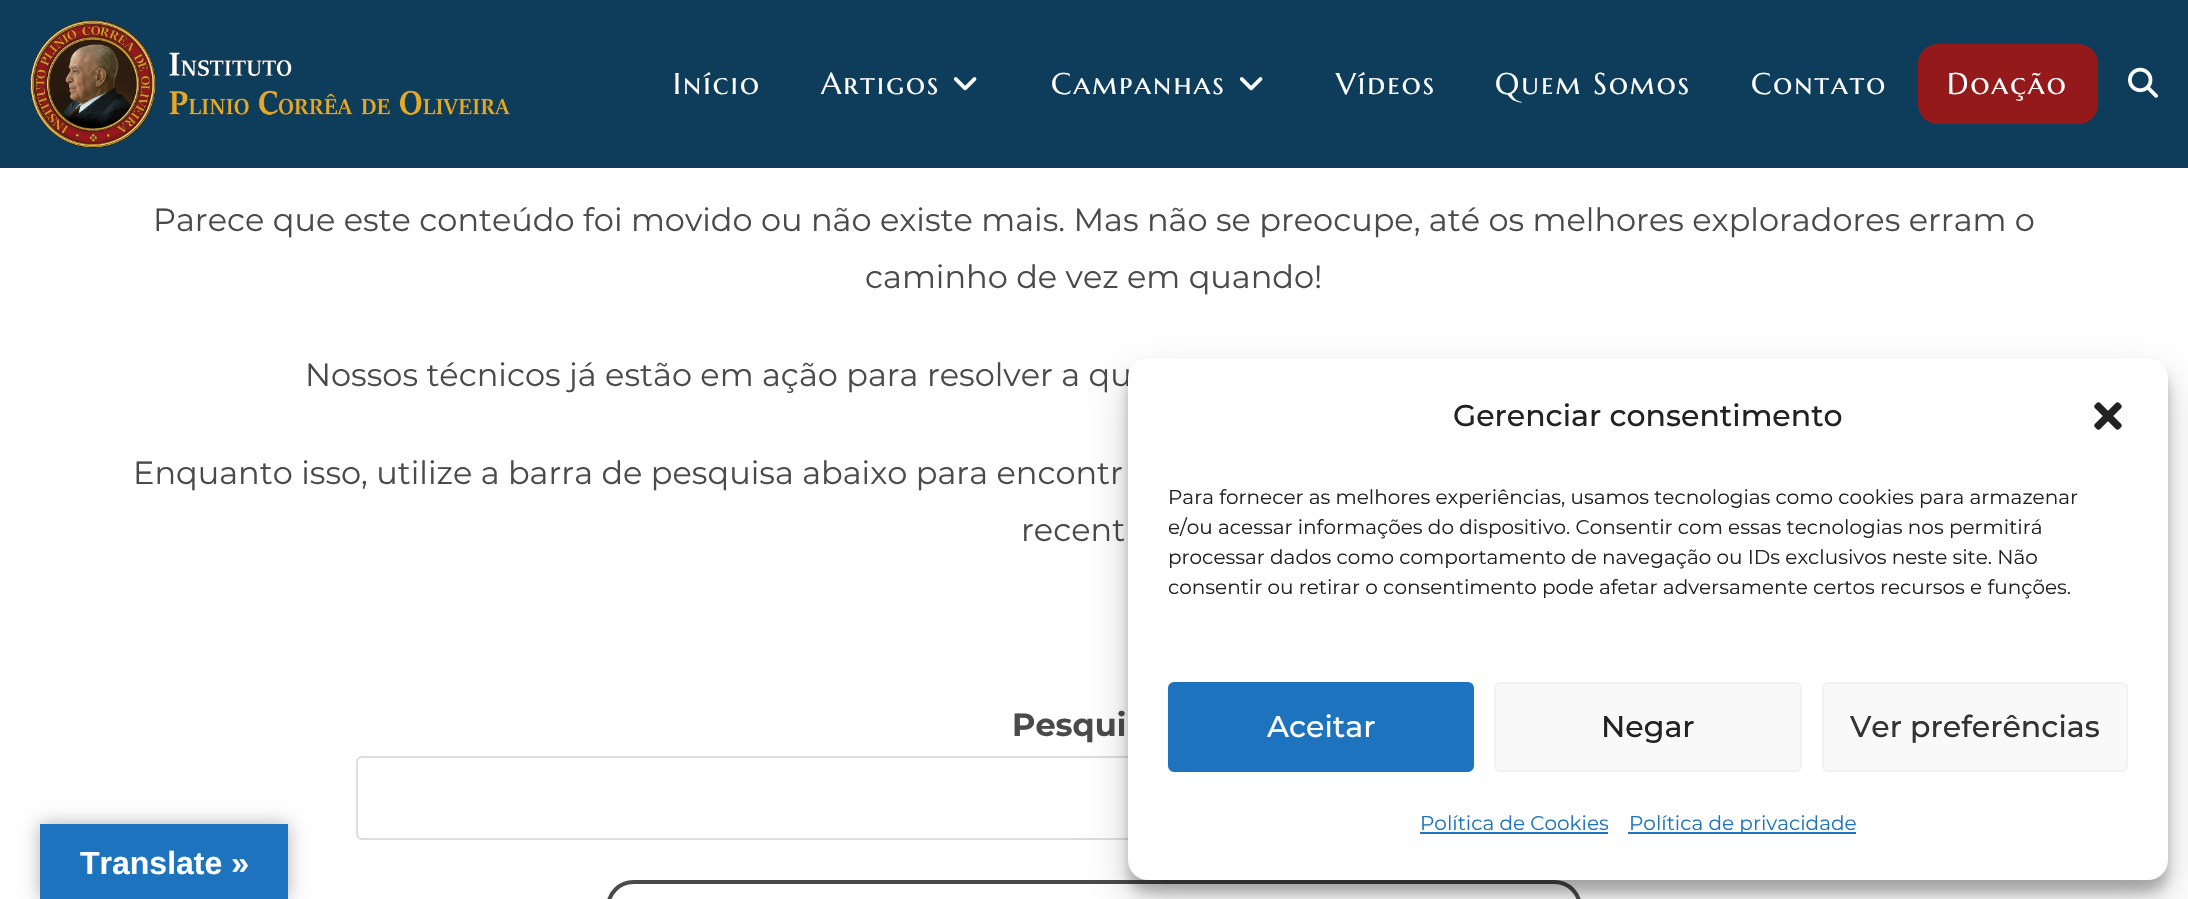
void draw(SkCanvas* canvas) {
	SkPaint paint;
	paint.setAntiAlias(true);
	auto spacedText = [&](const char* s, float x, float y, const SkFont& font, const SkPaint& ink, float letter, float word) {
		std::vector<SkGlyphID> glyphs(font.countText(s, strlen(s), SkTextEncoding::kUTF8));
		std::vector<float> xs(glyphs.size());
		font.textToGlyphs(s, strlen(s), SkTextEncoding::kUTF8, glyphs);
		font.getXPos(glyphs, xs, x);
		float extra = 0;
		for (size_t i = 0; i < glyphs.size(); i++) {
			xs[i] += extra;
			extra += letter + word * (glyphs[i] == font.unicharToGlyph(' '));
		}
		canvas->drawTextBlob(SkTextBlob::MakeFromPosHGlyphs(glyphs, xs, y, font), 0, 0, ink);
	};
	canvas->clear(0xffffffff);
	paint.setColor(0xff0d3d5b);
	canvas->drawRect(SkRect::MakeXYWH(0, 0, 2188, 168), paint);
	canvas->drawImageRect(SkImages::DeferredFromEncodedData(SkData::MakeFromFileName("img1.png")), SkRect::MakeXYWH(30, 20, 480, 128), SkSamplingOptions());
	SkFont f1(fontMgr->matchFamilyStyle("Marcellus SC", SkFontStyle::Normal()), 30);
	f1.setSubpixel(true);
	paint.setColor(0xffffffff);
	spacedText("Início", 673, 94, f1, paint, 2, 0);
	spacedText("Artigos", 821, 94, f1, paint, 2, 0);
	canvas->drawImageRect(SkImages::DeferredFromEncodedData(SkData::MakeFromFileName("img2.png")), SkRect::MakeXYWH(953, 77, 24, 14), SkSamplingOptions());
	spacedText("Campanhas", 1051, 94, f1, paint, 2, 0);
	canvas->drawImageRect(SkImages::DeferredFromEncodedData(SkData::MakeFromFileName("img2.png")), SkRect::MakeXYWH(1239, 77, 24, 14), SkSamplingOptions());
	spacedText("Vídeos", 1336, 94, f1, paint, 2, 0);
	spacedText("Quem Somos", 1495, 94, f1, paint, 2, 0);
	spacedText("Contato", 1751, 94, f1, paint, 2, 0);
	paint.setColor(0xff94191b);
	canvas->drawRoundRect(SkRect::MakeXYWH(1918, 44, 180, 80), 20, 20, paint);
	paint.setColor(0xffffffff);
	spacedText("Doação", 1947, 94, f1, paint, 2, 0);
	canvas->drawImageRect(SkImages::DeferredFromEncodedData(SkData::MakeFromFileName("img3.png")), SkRect::MakeXYWH(2128, 67, 30, 31), SkSamplingOptions());
	SkFont f2(fontMgr->matchFamilyStyle("Montserrat", SkFontStyle::Normal()), 32);
	f2.setSubpixel(true);
	paint.setColor(0xff4a4a4a);
	canvas->drawString("Parece que este conteúdo foi movido ou não existe mais. Mas não se preocupe, até os melhores exploradores erram o", 153, 231, f2, paint);
	canvas->drawString("caminho de vez em quando!", 865, 288, f2, paint);
	canvas->drawString("Nossos técnicos já estão em ação para resolver a qu", 305, 386, f2, paint);
	canvas->drawString("Enquanto isso, utilize a barra de pesquisa abaixo para encontr", 133, 484, f2, paint);
	canvas->drawString("recent", 1021, 541, f2, paint);
	SkFont f3(fontMgr->matchFamilyStyle("Montserrat", SkFontStyle::Bold()), 32);
	f3.setSubpixel(true);
	canvas->drawString("Pesqui", 1012, 736, f3, paint);
	paint.setStroke(true);
	paint.setStrokeWidth(2);
	paint.setColor(0xffdddddd);
	canvas->drawRoundRect(SkRect::MakeXYWH(357, 757, 1248, 82), 5, 5, paint);
	paint.setStrokeWidth(4);
	paint.setColor(0xff4a4a4a);
	canvas->drawRoundRect(SkRect::MakeXYWH(608, 882, 972, 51), 30, 30, paint);
	paint.setStroke(false);
	paint.setColor(0x3b000000);
	paint.setMaskFilter(SkMaskFilter::MakeBlur(kNormal_SkBlurStyle, 6));
	canvas->drawRoundRect(SkRect::MakeXYWH(1128, 370, 1040, 522), 20, 20, paint);
	paint.setMaskFilter(nullptr);
	paint.setColor(0x30000000);
	paint.setMaskFilter(SkMaskFilter::MakeBlur(kNormal_SkBlurStyle, 20));
	canvas->drawRoundRect(SkRect::MakeXYWH(1128, 378, 1040, 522), 20, 20, paint);
	paint.setMaskFilter(nullptr);
	paint.setColor(0xffffffff);
	canvas->drawRoundRect(SkRect::MakeXYWH(1128, 358, 1040, 522), 20, 20, paint);
	SkFont f4(fontMgr->matchFamilyStyle("Montserrat", SkFontStyle(500, SkFontStyle::kNormal_Width, SkFontStyle::kUpright_Slant)), 30);
	f4.setSubpixel(true);
	paint.setColor(0xff222222);
	canvas->drawString("Gerenciar consentimento", 1453, 426, f4, paint);
	canvas->drawImageRect(SkImages::DeferredFromEncodedData(SkData::MakeFromFileName("img4.png")), SkRect::MakeXYWH(2094, 402, 28, 28), SkSamplingOptions());
	SkFont f5(fontMgr->matchFamilyStyle("Montserrat", SkFontStyle::Normal()), 20);
	f5.setSubpixel(true);
	canvas->drawString("Para fornecer as melhores experiências, usamos tecnologias como cookies para armazenar", 1168, 504, f5, paint);
	canvas->drawString("e/ou acessar informações do dispositivo. Consentir com essas tecnologias nos permitirá", 1168, 534, f5, paint);
	canvas->drawString("processar dados como comportamento de navegação ou IDs exclusivos neste site. Não", 1168, 564, f5, paint);
	canvas->drawString("consentir ou retirar o consentimento pode afetar adversamente certos recursos e funções.", 1168, 594, f5, paint);
	paint.setColor(0xff1e73be);
	canvas->drawRoundRect(SkRect::MakeXYWH(1169, 683, 304, 88), 5, 5, paint);
	paint.setStroke(true);
	paint.setStrokeWidth(2);
	canvas->drawRoundRect(SkRect::MakeXYWH(1169, 683, 304, 88), 5, 5, paint);
	paint.setStroke(false);
	paint.setColor(0xffffffff);
	canvas->drawString("Aceitar", 1267, 737, f4, paint);
	paint.setColor(0xfff9f9f9);
	canvas->drawRoundRect(SkRect::MakeXYWH(1495, 683, 306, 88), 5, 5, paint);
	paint.setStroke(true);
	paint.setColor(0xfff2f2f2);
	canvas->drawRoundRect(SkRect::MakeXYWH(1495, 683, 306, 88), 5, 5, paint);
	paint.setStroke(false);
	paint.setColor(0xff222222);
	canvas->drawString("Negar", 1601, 737, f4, paint);
	paint.setColor(0xfff9f9f9);
	canvas->drawRoundRect(SkRect::MakeXYWH(1823, 683, 304, 88), 5, 5, paint);
	paint.setStroke(true);
	paint.setColor(0xfff2f2f2);
	canvas->drawRoundRect(SkRect::MakeXYWH(1823, 683, 304, 88), 5, 5, paint);
	paint.setStroke(false);
	paint.setColor(0xff333333);
	canvas->drawString("Ver preferências", 1850, 737, f4, paint);
	paint.setColor(0xff1e73be);
	canvas->drawString("Política de Cookies", 1420, 830, f5, paint);
	canvas->drawRect(SkRect::MakeXYWH(1420, 832, 188, 2), paint);
	canvas->drawRect(SkRect::MakeXYWH(1628, 832, 228, 2), paint);
	canvas->drawString("Política de privacidade", 1629, 830, f5, paint);
	paint.setColor(0x4d000000);
	paint.setMaskFilter(SkMaskFilter::MakeBlur(kNormal_SkBlurStyle, 9));
	canvas->drawRect(SkRect::MakeXYWH(40, 824, 248, 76), paint);
	paint.setMaskFilter(nullptr);
	paint.setColor(0xff1e73be);
	canvas->drawRect(SkRect::MakeXYWH(40, 824, 248, 75), paint);
	SkFont f6(fontMgr->matchFamilyStyle("Liberation Sans", SkFontStyle::Bold()), 32);
	f6.setSubpixel(true);
	paint.setColor(0xffffffff);
	canvas->drawString("Translate »", 80, 874, f6, paint);
}
